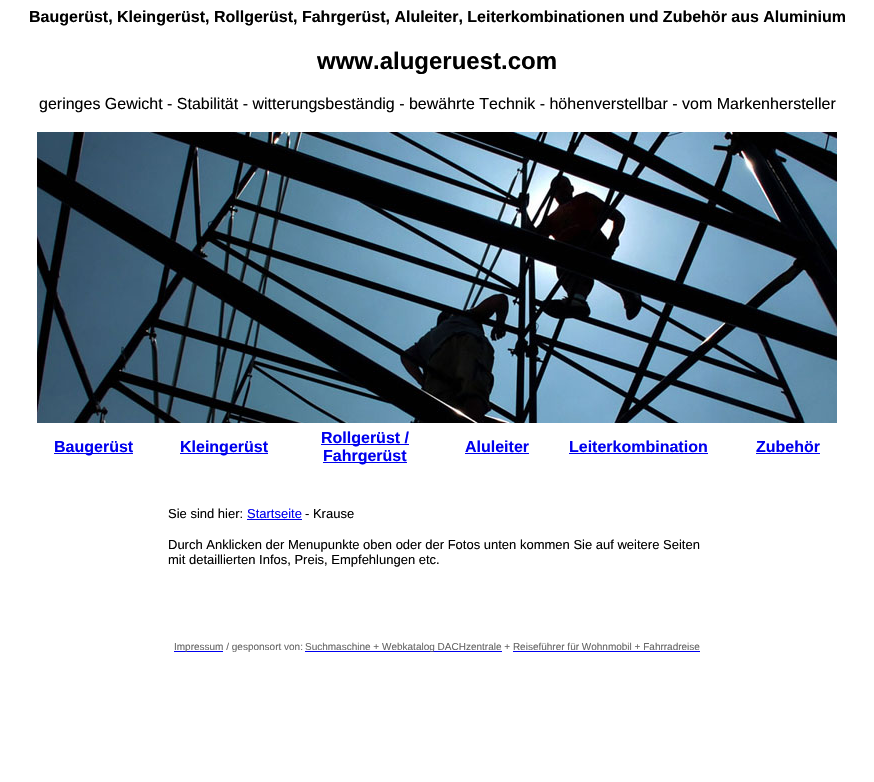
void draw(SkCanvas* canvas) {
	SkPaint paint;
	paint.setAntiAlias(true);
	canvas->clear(0xffffffff);
	SkFont f1(fontMgr->matchFamilyStyle("Liberation Sans", SkFontStyle::Bold()), 16);
	f1.setSubpixel(true);
	paint.setColor(0xff000000);
	canvas->drawString("Baugerüst, Kleingerüst, Rollgerüst, Fahrgerüst, Aluleiter, Leiterkombinationen und Zubehör aus Aluminium", 29, 22, f1, paint);
	SkFont f2(fontMgr->matchFamilyStyle("Liberation Sans", SkFontStyle::Bold()), 24);
	f2.setSubpixel(true);
	canvas->drawString("www.alugeruest.com", 317, 69, f2, paint);
	SkFont f3(fontMgr->matchFamilyStyle("Liberation Sans", SkFontStyle::Normal()), 16);
	f3.setSubpixel(true);
	canvas->drawString("geringes Gewicht - Stabilität - witterungsbeständig - bewährte Technik - höhenverstellbar - vom Markenhersteller", 39, 109, f3, paint);
	canvas->drawImageRect(SkImages::DeferredFromEncodedData(SkData::MakeFromFileName("img1.png")), SkRect::MakeXYWH(37, 132, 800, 291), SkSamplingOptions());
	paint.setColor(0xff0000ee);
	canvas->drawRect(SkRect::MakeXYWH(54, 453, 79, 1), paint);
	canvas->drawString("Baugerüst", 54, 452, f1, paint);
	canvas->drawRect(SkRect::MakeXYWH(180, 453, 88, 1), paint);
	canvas->drawString("Kleingerüst", 180, 452, f1, paint);
	canvas->drawRect(SkRect::MakeXYWH(321, 444, 88, 1), paint);
	canvas->drawString("Rollgerüst /", 321, 443, f1, paint);
	canvas->drawRect(SkRect::MakeXYWH(323, 462, 84, 1), paint);
	canvas->drawString("Fahrgerüst", 323, 461, f1, paint);
	canvas->drawString("Aluleiter", 465, 452, f1, paint);
	canvas->drawRect(SkRect::MakeXYWH(465, 453, 64, 1), paint);
	canvas->drawString("Leiterkombination", 569, 452, f1, paint);
	canvas->drawRect(SkRect::MakeXYWH(569, 453, 139, 1), paint);
	canvas->drawString("Zubehör", 756, 452, f1, paint);
	canvas->drawRect(SkRect::MakeXYWH(756, 453, 64, 1), paint);
	SkFont f4(fontMgr->matchFamilyStyle("Liberation Sans", SkFontStyle::Normal()), 13);
	f4.setSubpixel(true);
	paint.setColor(0xff000000);
	canvas->drawString("Sie sind hier:", 168, 518, f4, paint);
	paint.setColor(0xff0000ee);
	canvas->drawString("Startseite", 247, 518, f4, paint);
	canvas->drawRect(SkRect::MakeXYWH(247, 519, 55, 1), paint);
	paint.setColor(0xff000000);
	canvas->drawString("- Krause", 305, 518, f4, paint);
	canvas->drawString("Durch Anklicken der Menupunkte oben oder der Fotos unten kommen Sie auf weitere Seiten", 168, 549, f4, paint);
	canvas->drawString("mit detaillierten Infos, Preis, Empfehlungen etc.", 168, 564, f4, paint);
	paint.setColor(0xff0000ee);
	canvas->drawRect(SkRect::MakeXYWH(174, 651, 49, 1), paint);
	SkFont f5(fontMgr->matchFamilyStyle("Liberation Sans", SkFontStyle::Normal()), 10);
	f5.setSubpixel(true);
	paint.setColor(0xff666666);
	canvas->drawString("Impressum / gesponsort von:", 174, 650, f5, paint);
	paint.setColor(0xff0000ee);
	canvas->drawRect(SkRect::MakeXYWH(305, 651, 197, 1), paint);
	paint.setColor(0xff666666);
	canvas->drawString("Suchmaschine + Webkatalog DACHzentrale + Reiseführer für Wohnmobil + Fahrradreise", 305, 650, f5, paint);
	paint.setColor(0xff0000ee);
	canvas->drawRect(SkRect::MakeXYWH(513, 651, 187, 1), paint);
}
